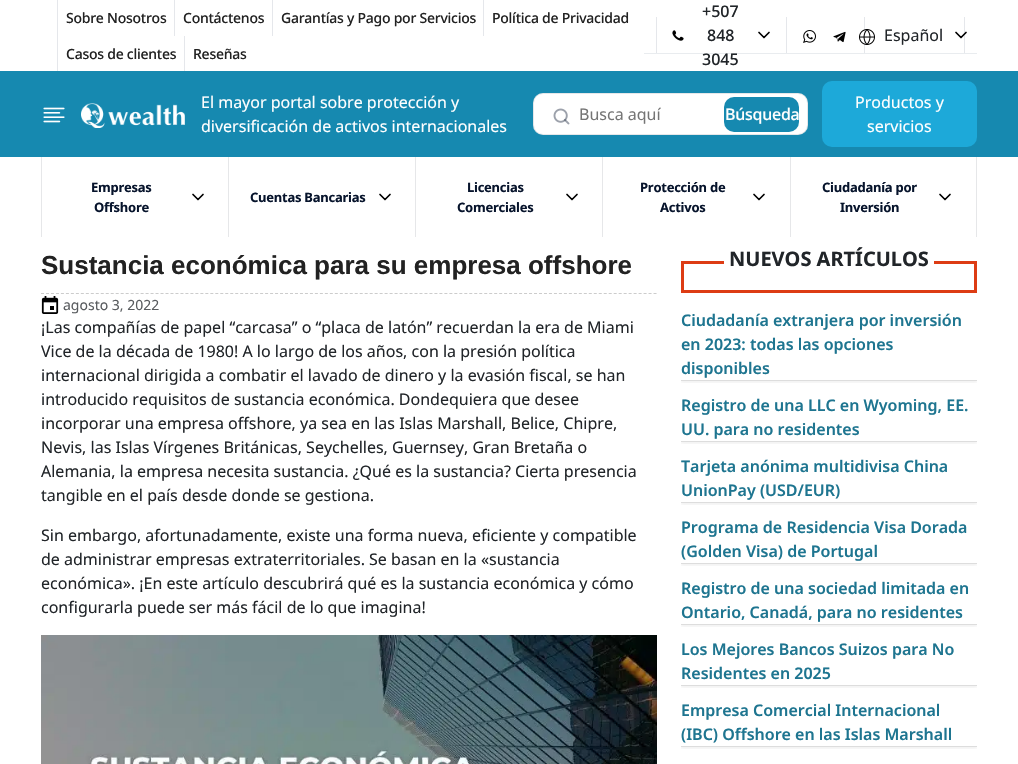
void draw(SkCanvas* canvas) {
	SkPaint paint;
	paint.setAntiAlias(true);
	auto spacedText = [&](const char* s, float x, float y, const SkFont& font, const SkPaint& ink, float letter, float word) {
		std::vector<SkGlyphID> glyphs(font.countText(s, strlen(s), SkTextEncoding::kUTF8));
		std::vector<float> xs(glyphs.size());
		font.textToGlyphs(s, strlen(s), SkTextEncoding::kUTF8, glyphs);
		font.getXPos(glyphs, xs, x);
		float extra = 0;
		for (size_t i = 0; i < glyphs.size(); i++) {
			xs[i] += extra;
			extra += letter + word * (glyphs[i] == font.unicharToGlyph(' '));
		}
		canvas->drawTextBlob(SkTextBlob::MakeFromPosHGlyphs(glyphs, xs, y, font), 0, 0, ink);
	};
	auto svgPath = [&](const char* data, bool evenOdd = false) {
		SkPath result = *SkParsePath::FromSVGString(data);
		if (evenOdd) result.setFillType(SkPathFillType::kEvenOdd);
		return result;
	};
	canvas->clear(0xffffffff);
	paint.setColor(0xffe5e7eb);
	canvas->drawRect(SkRect::MakeXYWH(57, 0, 1, 71), paint);
	SkFont f1(fontMgr->matchFamilyStyle("Noto Sans", SkFontStyle(500, SkFontStyle::kNormal_Width, SkFontStyle::kUpright_Slant)), 14);
	f1.setSubpixel(true);
	paint.setColor(0xff222222);
	spacedText("Sobre Nosotros", 66, 23, f1, paint, -0.25, 0);
	paint.setColor(0xffe5e7eb);
	canvas->drawRect(SkRect::MakeXYWH(174, 0, 1, 36), paint);
	paint.setColor(0xff222222);
	spacedText("Contáctenos", 183, 23, f1, paint, -0.25, 0);
	paint.setColor(0xffe5e7eb);
	canvas->drawRect(SkRect::MakeXYWH(272, 0, 1, 36), paint);
	paint.setColor(0xff222222);
	spacedText("Garantías y Pago por Servicios", 281, 23, f1, paint, -0.25, 0);
	paint.setColor(0xffe5e7eb);
	canvas->drawRect(SkRect::MakeXYWH(483, 0, 1, 36), paint);
	paint.setColor(0xff222222);
	spacedText("Política de Privacidad", 492, 23, f1, paint, -0.25, 0);
	spacedText("Casos de clientes", 66, 59, f1, paint, -0.25, 0);
	paint.setColor(0xffe5e7eb);
	canvas->drawRect(SkRect::MakeXYWH(184, 36, 1, 35), paint);
	paint.setColor(0xff222222);
	spacedText("Reseñas", 193, 59, f1, paint, -0.25, 0);
	paint.setColor(0xffe9ecef);
	canvas->drawRect(SkRect::MakeXYWH(644, 53, 333, 1), paint);
	paint.setColor(0xffe5e7eb);
	canvas->drawRect(SkRect::MakeXYWH(786, 17, 1, 36), paint);
	canvas->drawRect(SkRect::MakeXYWH(656, 17, 1, 36), paint);
	canvas->drawImageRect(SkImages::DeferredFromEncodedData(SkData::MakeFromFileName("img1.png")), SkRect::MakeXYWH(672, 30, 12, 11), SkSamplingOptions());
	SkFont f2(fontMgr->matchFamilyStyle("Noto Sans", SkFontStyle(500, SkFontStyle::kNormal_Width, SkFontStyle::kUpright_Slant)), 16);
	f2.setSubpixel(true);
	paint.setColor(0xff212529);
	canvas->drawString("+507", 702, 17, f2, paint);
	canvas->drawString("848", 707, 41, f2, paint);
	canvas->drawString("3045", 702, 65, f2, paint);
	paint.setStroke(true);
	paint.setStrokeWidth(1.7);
	paint.setStrokeCap(SkPaint::kRound_Cap);
	paint.setStrokeJoin(SkPaint::kRound_Join);
	paint.setColor(0xff000000);
	canvas->drawPath(svgPath("M759 32.5L764 37.5L769 32.5"), paint);
	canvas->drawImageRect(SkImages::DeferredFromEncodedData(SkData::MakeFromFileName("img2.png")), SkRect::MakeXYWH(803, 30, 13, 13), SkSamplingOptions());
	canvas->drawImageRect(SkImages::DeferredFromEncodedData(SkData::MakeFromFileName("img3.png")), SkRect::MakeXYWH(833, 31, 13, 12), SkSamplingOptions());
	paint.setStroke(false);
	paint.setColor(0xffe5e7eb);
	canvas->drawRect(SkRect::MakeXYWH(964, 17, 1, 36), paint);
	canvas->drawRect(SkRect::MakeXYWH(864, 17, 1, 36), paint);
	canvas->drawImageRect(SkImages::DeferredFromEncodedData(SkData::MakeFromFileName("img4.png")), SkRect::MakeXYWH(859, 29, 16, 16), SkSamplingOptions());
	SkFont f3(fontMgr->matchFamilyStyle("Noto Sans", SkFontStyle::Normal()), 16);
	f3.setSubpixel(true);
	paint.setColor(0xff212529);
	canvas->drawString("Español", 884, 41, f3, paint);
	paint.setStroke(true);
	paint.setColor(0xff000000);
	canvas->drawPath(svgPath("M956 32.5L961 37.5L966 32.5"), paint);
	paint.setStroke(false);
	paint.setColor(0xff1689b0);
	canvas->drawRect(SkRect::MakeXYWH(0, 71, 1018, 86), paint);
	canvas->drawImageRect(SkImages::DeferredFromEncodedData(SkData::MakeFromFileName("img5.png")), SkRect::MakeXYWH(43, 107, 22, 16), SkSamplingOptions());
	canvas->drawImageRect(SkImages::DeferredFromEncodedData(SkData::MakeFromFileName("img6.png")), SkRect::MakeXYWH(81, 103, 104, 25), SkSamplingOptions());
	paint.setColor(0xffffffff);
	canvas->drawString("El mayor portal sobre protección y", 201, 108, f3, paint);
	canvas->drawString("diversificación de activos internacionales", 201, 132, f3, paint);
	canvas->drawRoundRect(SkRect::MakeXYWH(533, 93, 275, 42), 10, 10, paint);
	paint.setStroke(true);
	paint.setStrokeWidth(1);
	paint.setStrokeCap(SkPaint::kButt_Cap);
	paint.setStrokeJoin(SkPaint::kMiter_Join);
	paint.setColor(0x1a011126);
	canvas->drawRoundRect(SkRect::MakeXYWH(533.5, 93.5, 274, 41), 9.5, 9.5, paint);
	canvas->drawImageRect(SkImages::DeferredFromEncodedData(SkData::MakeFromFileName("img7.png")), SkRect::MakeXYWH(553, 108, 17, 17), SkSamplingOptions());
	paint.setStroke(false);
	paint.setColor(0xff757575);
	canvas->drawString("Busca aquí", 579, 120, f3, paint);
	paint.setColor(0xff1689b0);
	canvas->drawRoundRect(SkRect::MakeXYWH(724, 97, 75, 35), 10, 10, paint);
	paint.setColor(0xffffffff);
	spacedText("Búsqueda", 725, 120, f2, paint, -0.25, 0);
	paint.setColor(0xff1da9d9);
	canvas->drawRoundRect(SkRect::MakeXYWH(822, 81, 155, 66), 10, 10, paint);
	paint.setColor(0xffffffff);
	canvas->drawString("Productos y", 855, 108, f3, paint);
	canvas->drawString("servicios", 867, 132, f3, paint);
	paint.setColor(0xffe6e7e9);
	canvas->drawRect(SkRect::MakeXYWH(41, 157, 1, 80), paint);
	SkFont f4(fontMgr->matchFamilyStyle("Noto Sans", SkFontStyle::Bold()), 13);
	f4.setSubpixel(true);
	paint.setColor(0xff07142c);
	spacedText("Empresas", 91, 192, f4, paint, -0.25, 0);
	spacedText("Offshore", 94, 212, f4, paint, -0.25, 0);
	paint.setStroke(true);
	paint.setStrokeWidth(1.7);
	paint.setStrokeCap(SkPaint::kRound_Cap);
	paint.setStrokeJoin(SkPaint::kRound_Join);
	paint.setColor(0xff000000);
	canvas->drawPath(svgPath("M193 194.5L198 199.5L203 194.5"), paint);
	paint.setStroke(false);
	paint.setColor(0xffe6e7e9);
	canvas->drawRect(SkRect::MakeXYWH(228, 157, 1, 80), paint);
	paint.setColor(0xff07142c);
	spacedText("Cuentas Bancarias", 250, 202, f4, paint, -0.25, 0);
	paint.setStroke(true);
	paint.setColor(0xff000000);
	canvas->drawPath(svgPath("M380 194.5L385 199.5L390 194.5"), paint);
	paint.setStroke(false);
	paint.setColor(0xffe6e7e9);
	canvas->drawRect(SkRect::MakeXYWH(415, 157, 1, 80), paint);
	paint.setColor(0xff07142c);
	spacedText("Licencias", 467, 192, f4, paint, -0.25, 0);
	spacedText("Comerciales", 457, 212, f4, paint, -0.25, 0);
	paint.setStroke(true);
	paint.setColor(0xff000000);
	canvas->drawPath(svgPath("M567 194.5L572 199.5L577 194.5"), paint);
	paint.setStroke(false);
	paint.setColor(0xffe6e7e9);
	canvas->drawRect(SkRect::MakeXYWH(602, 157, 1, 80), paint);
	paint.setColor(0xff07142c);
	spacedText("Protección de", 640, 192, f4, paint, -0.25, 0);
	spacedText("Activos", 660, 212, f4, paint, -0.25, 0);
	paint.setStroke(true);
	paint.setColor(0xff000000);
	canvas->drawPath(svgPath("M754 194.5L759 199.5L764 194.5"), paint);
	paint.setStroke(false);
	paint.setColor(0xffe6e7e9);
	canvas->drawRect(SkRect::MakeXYWH(976, 157, 1, 80), paint);
	canvas->drawRect(SkRect::MakeXYWH(790, 157, 1, 80), paint);
	paint.setColor(0xff07142c);
	spacedText("Ciudadanía por", 822, 192, f4, paint, -0.25, 0);
	spacedText("Inversión", 840, 212, f4, paint, -0.25, 0);
	paint.setStroke(true);
	paint.setColor(0xff000000);
	canvas->drawPath(svgPath("M940 194.5L945 199.5L950 194.5"), paint);
	paint.setStrokeWidth(1);
	paint.setStrokeCap(SkPaint::kButt_Cap);
	paint.setStrokeJoin(SkPaint::kMiter_Join);
	paint.setColor(0xffcccccc);
	paint.setPathEffect(SkDashPathEffect::Make({{3, 1.98f}}, 0));
	canvas->drawPath(svgPath("M41 293.5H657"), paint);
	paint.setPathEffect(nullptr);
	SkFont f5(fontMgr->matchFamilyStyle("Liberation Sans", SkFontStyle::Bold()), 26);
	f5.setSubpixel(true);
	paint.setStroke(false);
	paint.setColor(0xff222222);
	canvas->drawString("Sustancia económica para su empresa offshore", 41, 274, f5, paint);
	canvas->drawImageRect(SkImages::DeferredFromEncodedData(SkData::MakeFromFileName("img8.png")), SkRect::MakeXYWH(41, 296, 18, 18), SkSamplingOptions());
	SkFont f6(fontMgr->matchFamilyStyle("Noto Sans", SkFontStyle::Normal()), 14);
	f6.setSubpixel(true);
	paint.setColor(0xff595c5f);
	canvas->drawString("agosto 3, 2022", 63, 310, f6, paint);
	paint.setColor(0xff212529);
	canvas->drawString("¡Las compañías de papel “carcasa” o “placa de latón” recuerdan la era de Miami", 41, 333, f3, paint);
	canvas->drawString("Vice de la década de 1980! A lo largo de los años, con la presión política", 41, 357, f3, paint);
	canvas->drawString("internacional dirigida a combatir el lavado de dinero y la evasión fiscal, se han", 41, 381, f3, paint);
	canvas->drawString("introducido requisitos de sustancia económica. Dondequiera que desee", 41, 405, f3, paint);
	canvas->drawString("incorporar una empresa offshore, ya sea en las Islas Marshall, Belice, Chipre,", 41, 429, f3, paint);
	canvas->drawString("Nevis, las Islas Vírgenes Británicas, Seychelles, Guernsey, Gran Bretaña o", 41, 453, f3, paint);
	canvas->drawString("Alemania, la empresa necesita sustancia. ¿Qué es la sustancia? Cierta presencia", 41, 477, f3, paint);
	canvas->drawString("tangible en el país desde donde se gestiona.", 41, 501, f3, paint);
	canvas->drawString("Sin embargo, afortunadamente, existe una forma nueva, eficiente y compatible", 41, 541, f3, paint);
	canvas->drawString("de administrar empresas extraterritoriales. Se basan en la «sustancia", 41, 565, f3, paint);
	canvas->drawString("económica». ¡En este artículo descubrirá qué es la sustancia económica y cómo", 41, 589, f3, paint);
	canvas->drawString("configurarla puede ser más fácil de lo que imagina!", 41, 613, f3, paint);
	canvas->drawImageRect(SkImages::DeferredFromEncodedData(SkData::MakeFromFileName("img9.png")), SkRect::MakeXYWH(41, 635, 616, 129), SkSamplingOptions());
	paint.setStroke(true);
	paint.setStrokeWidth(3);
	paint.setColor(0xffdd3c14);
	canvas->drawRect(SkRect::MakeXYWH(682.5, 262.5, 293, 29), paint);
	paint.setStroke(false);
	paint.setColor(0xffffffff);
	canvas->drawRect(SkRect::MakeXYWH(724, 261, 210, 3), paint);
	SkFont f7(fontMgr->matchFamilyStyle("Noto Sans", SkFontStyle::Bold()), 20);
	f7.setSubpixel(true);
	paint.setColor(0xff212529);
	canvas->drawString("NUEVOS ARTÍCULOS", 729, 266, f7, paint);
	canvas->save();
	canvas->clipRect(SkRect::MakeXYWH(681, 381, 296, 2));
	paint.setColor(0x0d000000);
	paint.setMaskFilter(SkMaskFilter::MakeBlur(kNormal_SkBlurStyle, 1.5));
	canvas->drawRect(SkRect::MakeXYWH(681, 310, 296, 73), paint);
	paint.setMaskFilter(nullptr);
	canvas->restore();
	paint.setColor(0xffdddddd);
	canvas->drawRect(SkRect::MakeXYWH(681, 380, 296, 1), paint);
	SkFont f8(fontMgr->matchFamilyStyle("Noto Sans", SkFontStyle(600, SkFontStyle::kNormal_Width, SkFontStyle::kUpright_Slant)), 16);
	f8.setSubpixel(true);
	paint.setColor(0xff1e7590);
	canvas->drawString("Ciudadanía extranjera por inversión", 681, 326, f8, paint);
	canvas->drawString("en 2023: todas las opciones", 681, 350, f8, paint);
	canvas->drawString("disponibles", 681, 374, f8, paint);
	canvas->save();
	canvas->clipRect(SkRect::MakeXYWH(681, 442, 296, 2));
	paint.setColor(0x0d000000);
	paint.setMaskFilter(SkMaskFilter::MakeBlur(kNormal_SkBlurStyle, 1.5));
	canvas->drawRect(SkRect::MakeXYWH(681, 395, 296, 49), paint);
	paint.setMaskFilter(nullptr);
	canvas->restore();
	paint.setColor(0xffdddddd);
	canvas->drawRect(SkRect::MakeXYWH(681, 441, 296, 1), paint);
	paint.setColor(0xff1e7590);
	canvas->drawString("Registro de una LLC en Wyoming, EE.", 681, 411, f8, paint);
	canvas->drawString("UU. para no residentes", 681, 435, f8, paint);
	canvas->save();
	canvas->clipRect(SkRect::MakeXYWH(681, 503, 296, 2));
	paint.setColor(0x0d000000);
	paint.setMaskFilter(SkMaskFilter::MakeBlur(kNormal_SkBlurStyle, 1.5));
	canvas->drawRect(SkRect::MakeXYWH(681, 456, 296, 49), paint);
	paint.setMaskFilter(nullptr);
	canvas->restore();
	paint.setColor(0xffdddddd);
	canvas->drawRect(SkRect::MakeXYWH(681, 502, 296, 1), paint);
	paint.setColor(0xff1e7590);
	canvas->drawString("Tarjeta anónima multidivisa China", 681, 472, f8, paint);
	canvas->drawString("UnionPay (USD/EUR)", 681, 496, f8, paint);
	canvas->save();
	canvas->clipRect(SkRect::MakeXYWH(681, 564, 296, 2));
	paint.setColor(0x0d000000);
	paint.setMaskFilter(SkMaskFilter::MakeBlur(kNormal_SkBlurStyle, 1.5));
	canvas->drawRect(SkRect::MakeXYWH(681, 517, 296, 49), paint);
	paint.setMaskFilter(nullptr);
	canvas->restore();
	paint.setColor(0xffdddddd);
	canvas->drawRect(SkRect::MakeXYWH(681, 563, 296, 1), paint);
	paint.setColor(0xff1e7590);
	canvas->drawString("Programa de Residencia Visa Dorada", 681, 533, f8, paint);
	canvas->drawString("(Golden Visa) de Portugal", 681, 557, f8, paint);
	canvas->save();
	canvas->clipRect(SkRect::MakeXYWH(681, 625, 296, 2));
	paint.setColor(0x0d000000);
	paint.setMaskFilter(SkMaskFilter::MakeBlur(kNormal_SkBlurStyle, 1.5));
	canvas->drawRect(SkRect::MakeXYWH(681, 578, 296, 49), paint);
	paint.setMaskFilter(nullptr);
	canvas->restore();
	paint.setColor(0xffdddddd);
	canvas->drawRect(SkRect::MakeXYWH(681, 624, 296, 1), paint);
	paint.setColor(0xff1e7590);
	canvas->drawString("Registro de una sociedad limitada en", 681, 594, f8, paint);
	canvas->drawString("Ontario, Canadá, para no residentes", 681, 618, f8, paint);
	canvas->save();
	canvas->clipRect(SkRect::MakeXYWH(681, 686, 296, 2));
	paint.setColor(0x0d000000);
	paint.setMaskFilter(SkMaskFilter::MakeBlur(kNormal_SkBlurStyle, 1.5));
	canvas->drawRect(SkRect::MakeXYWH(681, 639, 296, 49), paint);
	paint.setMaskFilter(nullptr);
	canvas->restore();
	paint.setColor(0xffdddddd);
	canvas->drawRect(SkRect::MakeXYWH(681, 685, 296, 1), paint);
	paint.setColor(0xff1e7590);
	canvas->drawString("Los Mejores Bancos Suizos para No", 681, 655, f8, paint);
	canvas->drawString("Residentes en 2025", 681, 679, f8, paint);
	canvas->save();
	canvas->clipRect(SkRect::MakeXYWH(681, 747, 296, 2));
	paint.setColor(0x0d000000);
	paint.setMaskFilter(SkMaskFilter::MakeBlur(kNormal_SkBlurStyle, 1.5));
	canvas->drawRect(SkRect::MakeXYWH(681, 700, 296, 49), paint);
	paint.setMaskFilter(nullptr);
	canvas->restore();
	paint.setColor(0xffdddddd);
	canvas->drawRect(SkRect::MakeXYWH(681, 746, 296, 1), paint);
	paint.setColor(0xff1e7590);
	canvas->drawString("Empresa Comercial Internacional", 681, 716, f8, paint);
	canvas->drawString("(IBC) Offshore en las Islas Marshall", 681, 740, f8, paint);
}
